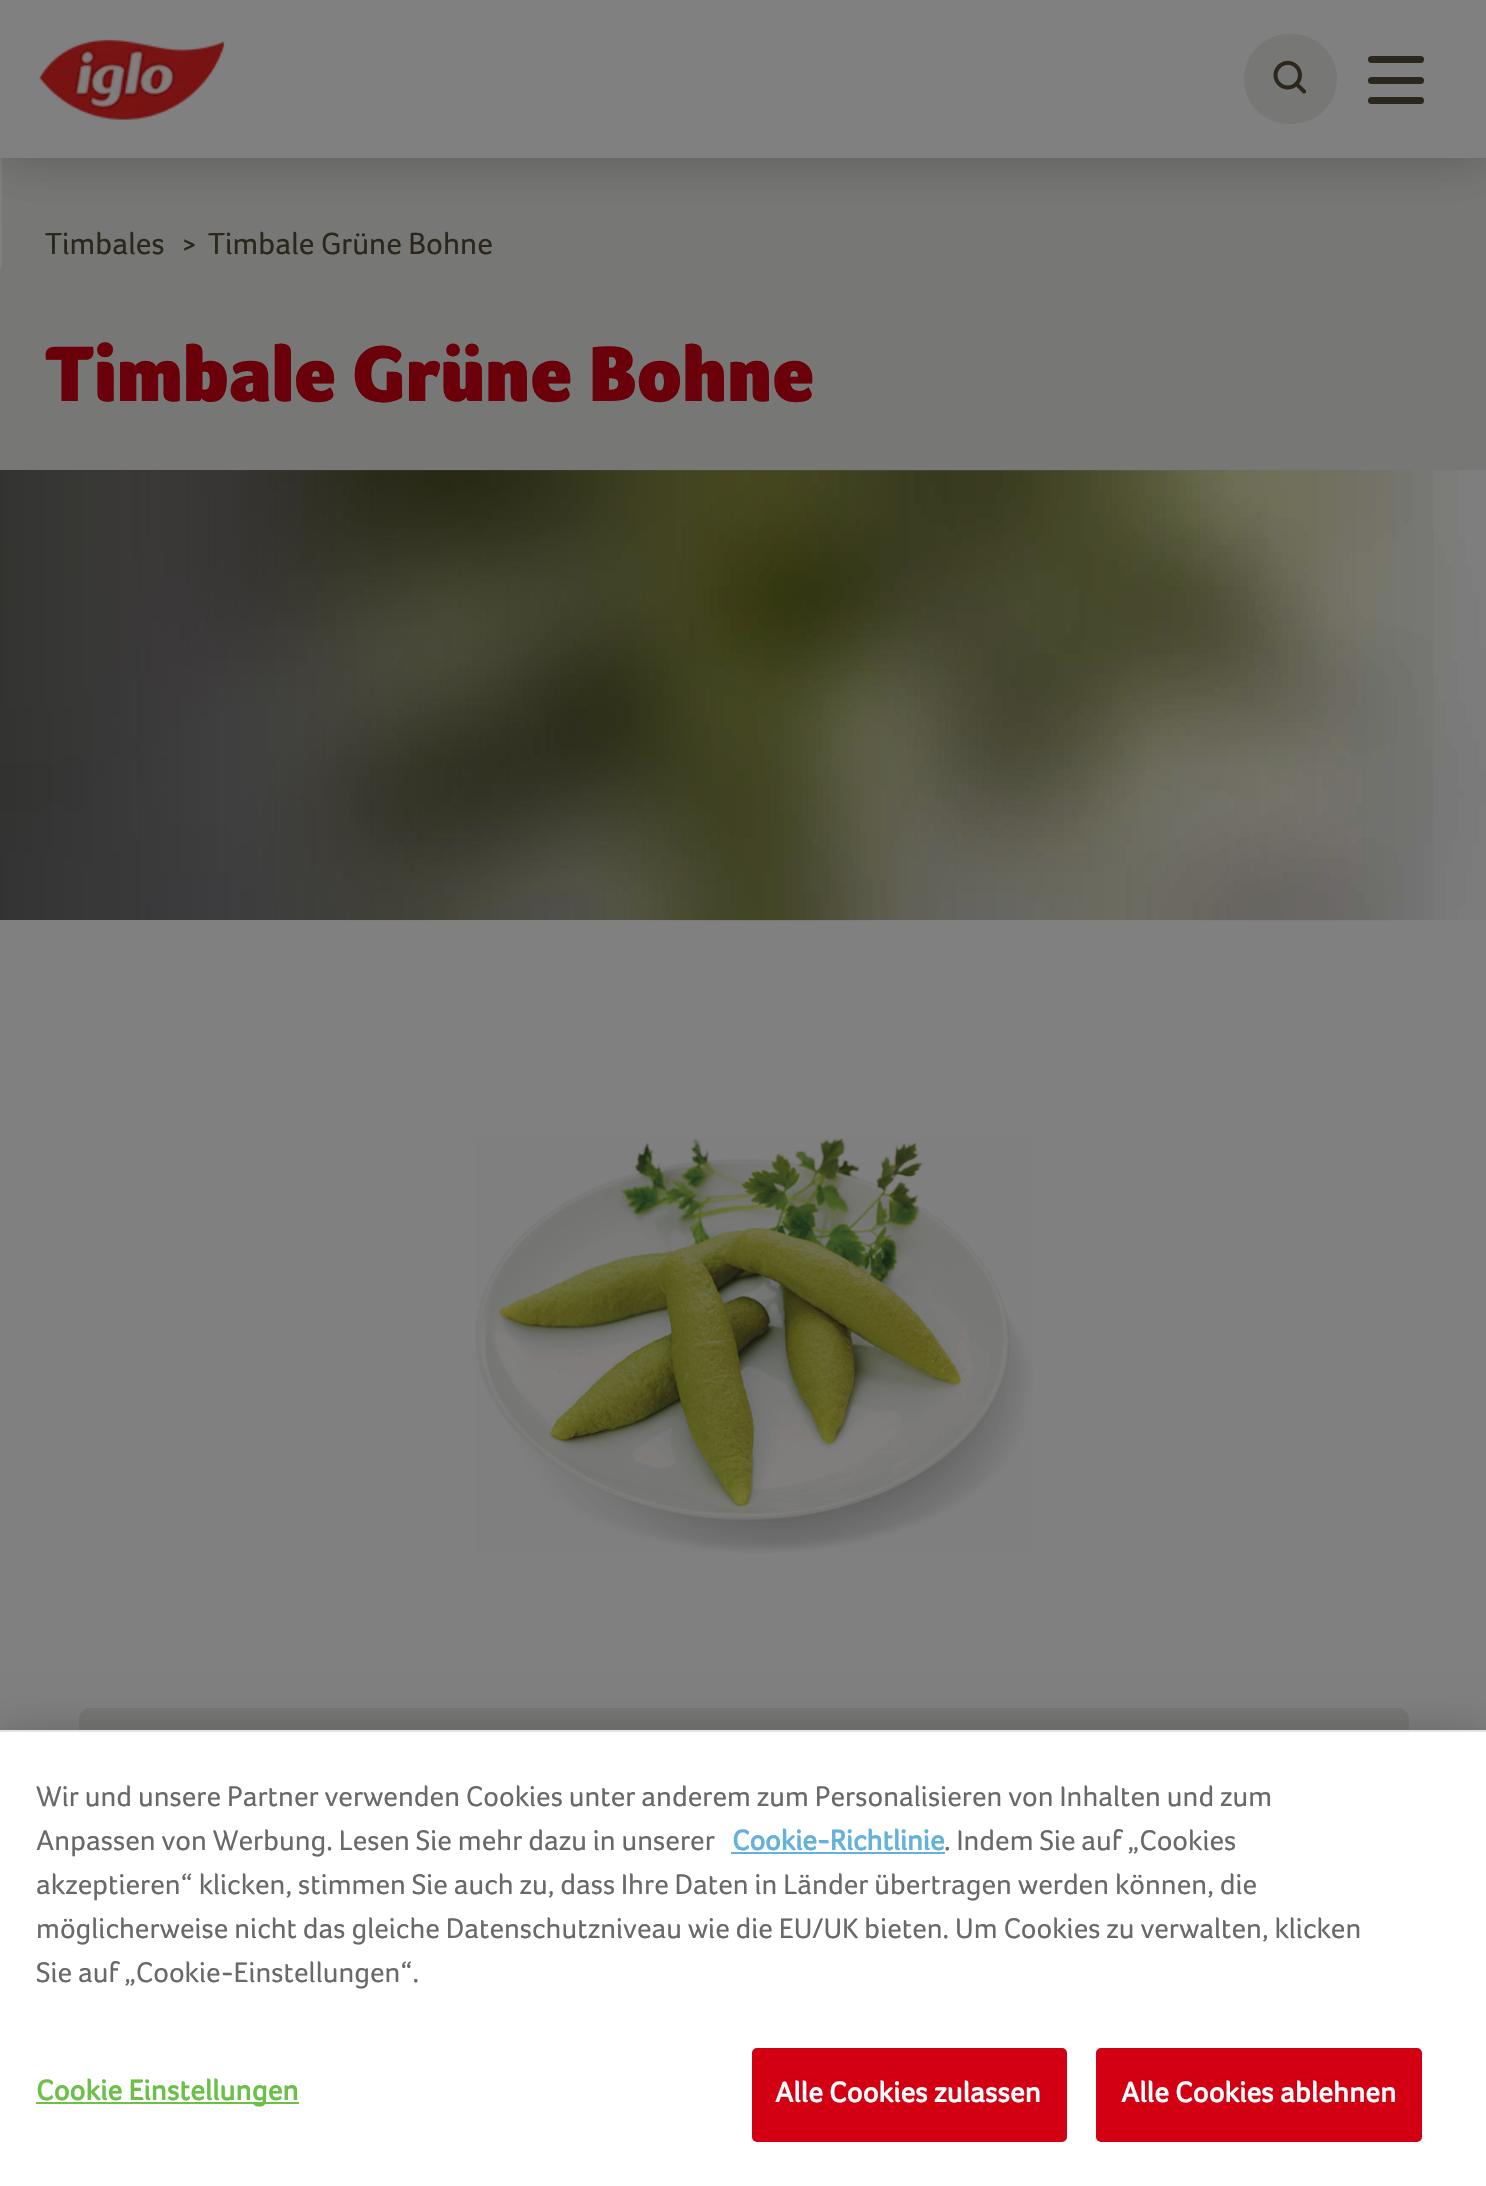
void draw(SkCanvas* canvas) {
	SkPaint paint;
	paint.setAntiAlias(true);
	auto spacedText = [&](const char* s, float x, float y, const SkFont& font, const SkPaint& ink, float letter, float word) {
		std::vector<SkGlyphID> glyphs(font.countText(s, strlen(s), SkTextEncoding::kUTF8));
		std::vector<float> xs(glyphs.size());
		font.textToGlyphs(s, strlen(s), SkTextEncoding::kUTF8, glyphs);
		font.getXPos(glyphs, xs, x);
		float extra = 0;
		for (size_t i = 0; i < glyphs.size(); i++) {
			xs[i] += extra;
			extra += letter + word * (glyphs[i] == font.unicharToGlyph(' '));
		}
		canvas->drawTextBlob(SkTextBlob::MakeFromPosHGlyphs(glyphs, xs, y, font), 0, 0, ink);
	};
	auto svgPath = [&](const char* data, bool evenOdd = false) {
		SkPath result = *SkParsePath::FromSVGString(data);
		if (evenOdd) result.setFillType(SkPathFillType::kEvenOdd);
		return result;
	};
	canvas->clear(0xff808080);
	paint.setColor(0xff777776);
	canvas->drawRect(SkRect::MakeXYWH(2, 158, 1484, 110), paint);
	paint.setColor(0x1a000000);
	paint.setMaskFilter(SkMaskFilter::MakeBlur(kNormal_SkBlurStyle, 22.5));
	canvas->drawRect(SkRect::MakeXYWH(0, 5, 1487, 157), paint);
	paint.setMaskFilter(nullptr);
	paint.setMaskFilter(SkMaskFilter::MakeBlur(kNormal_SkBlurStyle, 22.5));
	canvas->drawRect(SkRect::MakeXYWH(0, 5, 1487, 157), paint);
	paint.setMaskFilter(nullptr);
	paint.setColor(0xff808080);
	canvas->drawRect(SkRect::MakeXYWH(0, 0, 1486, 158), paint);
	canvas->drawImageRect(SkImages::DeferredFromEncodedData(SkData::MakeFromFileName("img1.png")), SkRect::MakeXYWH(39, 39, 186, 81), SkSamplingOptions());
	paint.setColor(0xff777776);
	canvas->drawRoundRect(SkRect::MakeXYWH(1244, 34, 93, 90), 45, 45, paint);
	canvas->drawImageRect(SkImages::DeferredFromEncodedData(SkData::MakeFromFileName("img2.png")), SkRect::MakeXYWH(1273, 60, 33, 34), SkSamplingOptions());
	paint.setColor(0xff2c271c);
	canvas->drawRoundRect(SkRect::MakeXYWH(1368, 77, 56, 7), 3.5, 3.5, paint);
	canvas->drawRoundRect(SkRect::MakeXYWH(1368, 56, 56, 7), 3.5, 3.5, paint);
	canvas->drawRoundRect(SkRect::MakeXYWH(1368, 97, 56, 7), 3.5, 3.5, paint);
	SkFont f1(fontMgr->matchFamilyStyle("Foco", SkFontStyle::Normal()), 31.5);
	f1.setSubpixel(true);
	canvas->drawString("Timbales", 45, 254, f1, paint);
	SkFont f2(fontMgr->matchFamilyStyle("Foco", SkFontStyle::Normal()), 27);
	f2.setSubpixel(true);
	canvas->drawString(">", 182, 254, f2, paint);
	canvas->drawString("Timbale Grüne Bohne", 208, 254, f1, paint);
	paint.setColor(0xff777776);
	canvas->drawRect(SkRect::MakeXYWH(0, 268, 1486, 203), paint);
	SkFont f3(fontMgr->matchFamilyStyle("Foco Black", SkFontStyle(900, SkFontStyle::kNormal_Width, SkFontStyle::kUpright_Slant)), 81);
	f3.setSubpixel(true);
	paint.setColor(0xff6a000a);
	canvas->drawString("Timbale Grüne Bohne", 45, 401, f3, paint);
	canvas->drawImageRect(SkImages::DeferredFromEncodedData(SkData::MakeFromFileName("img3.png")), SkRect::MakeXYWH(0, 470, 1486, 451), SkSamplingOptions());
	{
		const SkColor colors[] = {0x99000000, 0x00000000};
		const float stops[] = {0, 1};
		const SkPoint ends[] = {{0, 695}, {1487, 695}};
		paint.setShader(SkGradientShader::MakeLinear(ends, colors, stops, 2, SkTileMode::kClamp));
		paint.setAlpha(255);
	}
	canvas->drawRect(SkRect::MakeXYWH(0, 470, 1434, 450), paint);
	canvas->drawImageRect(SkImages::DeferredFromEncodedData(SkData::MakeFromFileName("img4.png")), SkRect::MakeXYWH(475, 1137, 558, 416), SkSamplingOptions());
	paint.setShader(nullptr);
	paint.setColor(0xff777776);
	canvas->drawPath(svgPath("M90 1708H1398C1404 1708 1409 1713 1409 1719V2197H79V1719C79 1713 84 1708 90 1708Z"), paint);
	paint.setColor(0x33000000);
	paint.setMaskFilter(SkMaskFilter::MakeBlur(kNormal_SkBlurStyle, 20));
	canvas->drawRect(SkRect::MakeXYWH(0, 1730, 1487, 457), paint);
	paint.setMaskFilter(nullptr);
	paint.setColor(0xffffffff);
	canvas->drawRect(SkRect::MakeXYWH(0, 1732, 1486, 454), paint);
	paint.setColor(0xffe3e3e3);
	canvas->drawRect(SkRect::MakeXYWH(0, 1730, 1486, 2), paint);
	SkFont f4(fontMgr->matchFamilyStyle("Foco", SkFontStyle::Normal()), 29.25);
	f4.setSubpixel(true);
	paint.setColor(0xff696969);
	canvas->drawString("Wir und unsere Partner verwenden Cookies unter anderem zum Personalisieren von Inhalten und zum", 36, 1806, f4, paint);
	canvas->drawString("Anpassen von Werbung. Lesen Sie mehr dazu in unserer", 36, 1850, f4, paint);
	SkFont f5(fontMgr->matchFamilyStyle("Foco", SkFontStyle::Bold()), 29.25);
	f5.setSubpixel(true);
	paint.setColor(0xff64b2dc);
	canvas->drawString("Cookie-Richtlinie", 732, 1850, f5, paint);
	canvas->drawRect(SkRect::MakeXYWH(731, 1852, 214, 2), paint);
	paint.setColor(0xff696969);
	canvas->drawString(". Indem Sie auf „Cookies", 944, 1850, f4, paint);
	canvas->drawString("akzeptieren“ klicken, stimmen Sie auch zu, dass Ihre Daten in Länder übertragen werden können, die", 36, 1894, f4, paint);
	canvas->drawString("möglicherweise nicht das gleiche Datenschutzniveau wie die EU/UK bieten. Um Cookies zu verwalten, klicken", 36, 1938, f4, paint);
	canvas->drawString("Sie auf „Cookie-Einstellungen“.", 36, 1982, f4, paint);
	paint.setColor(0xff6cc04a);
	canvas->drawRect(SkRect::MakeXYWH(36, 2102, 263, 2), paint);
	spacedText("Cookie Einstellungen", 36, 2100, f5, paint, 0.25, 0);
	paint.setColor(0xffd30013);
	canvas->drawRoundRect(SkRect::MakeXYWH(753, 2049, 313, 92), 4, 4, paint);
	paint.setStroke(true);
	paint.setStrokeWidth(2);
	canvas->drawRoundRect(SkRect::MakeXYWH(753, 2049, 313, 92), 4, 4, paint);
	paint.setStroke(false);
	paint.setColor(0xffffffff);
	spacedText("Alle Cookies zulassen", 775, 2102, f5, paint, 0.25, 0);
	paint.setColor(0xffd30013);
	canvas->drawRoundRect(SkRect::MakeXYWH(1097, 2049, 324, 92), 4, 4, paint);
	paint.setStroke(true);
	canvas->drawRoundRect(SkRect::MakeXYWH(1097, 2049, 324, 92), 4, 4, paint);
	paint.setStroke(false);
	paint.setColor(0xffffffff);
	spacedText("Alle Cookies ablehnen", 1121, 2102, f5, paint, 0.25, 0);
}
